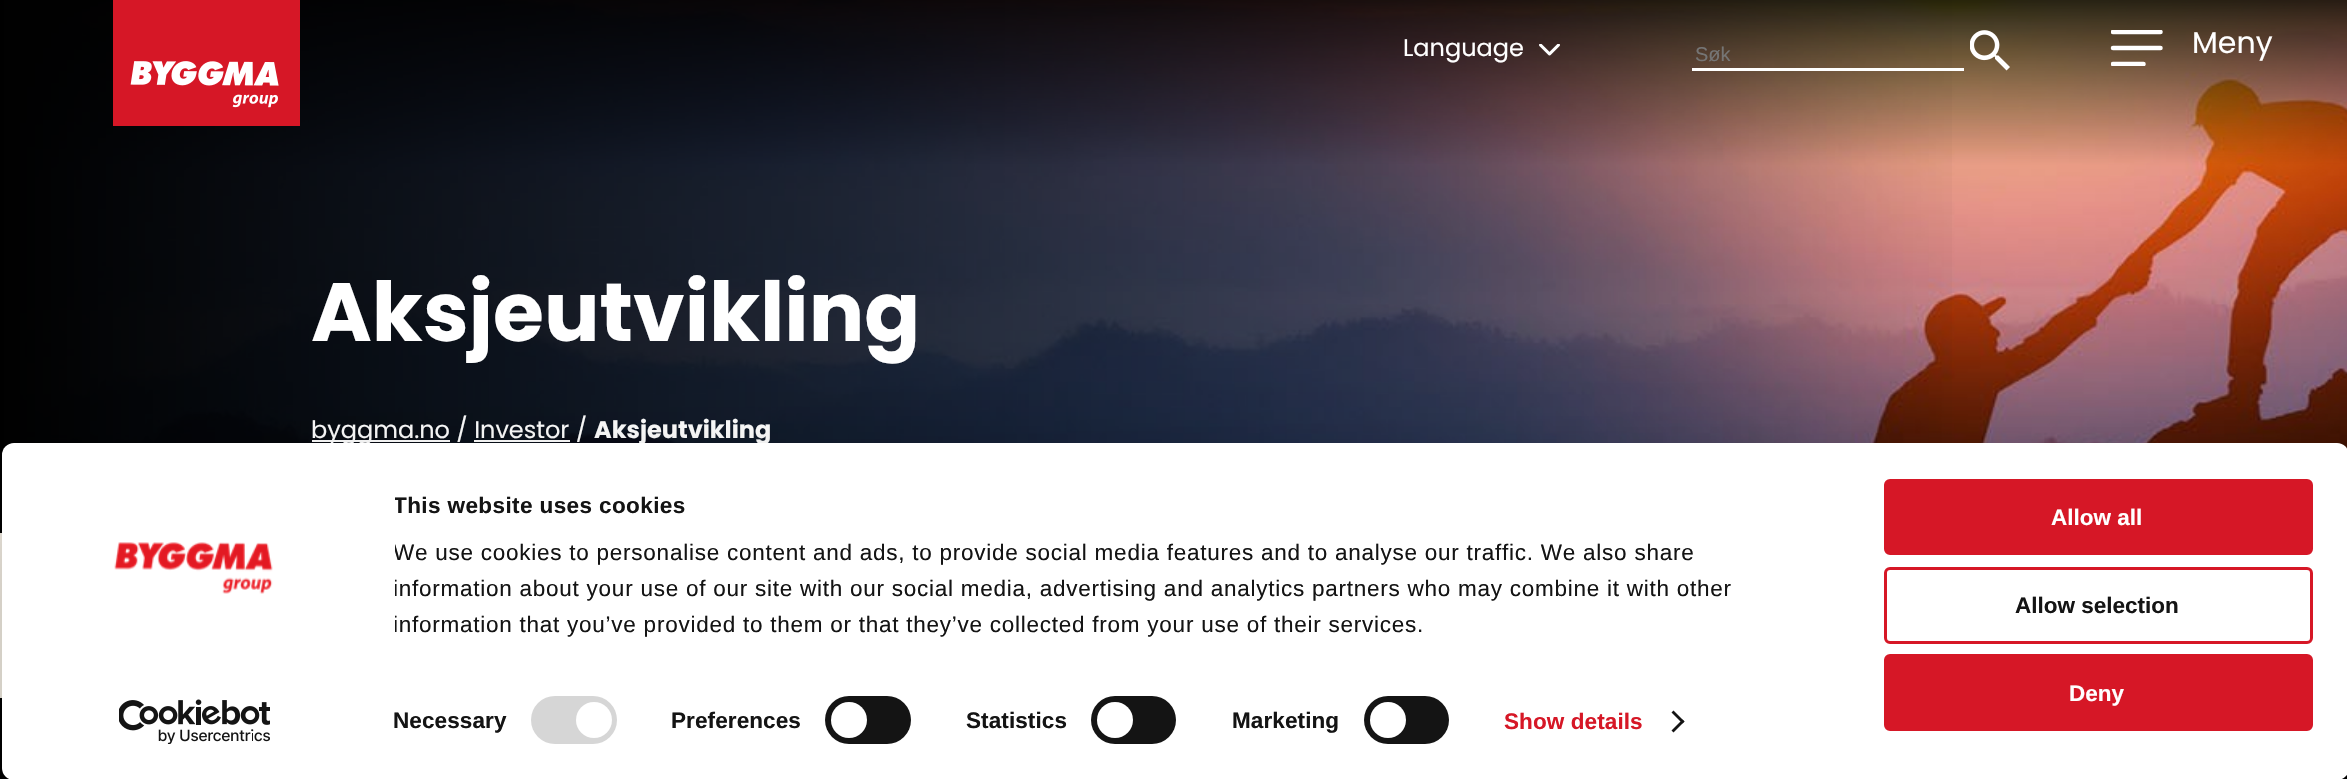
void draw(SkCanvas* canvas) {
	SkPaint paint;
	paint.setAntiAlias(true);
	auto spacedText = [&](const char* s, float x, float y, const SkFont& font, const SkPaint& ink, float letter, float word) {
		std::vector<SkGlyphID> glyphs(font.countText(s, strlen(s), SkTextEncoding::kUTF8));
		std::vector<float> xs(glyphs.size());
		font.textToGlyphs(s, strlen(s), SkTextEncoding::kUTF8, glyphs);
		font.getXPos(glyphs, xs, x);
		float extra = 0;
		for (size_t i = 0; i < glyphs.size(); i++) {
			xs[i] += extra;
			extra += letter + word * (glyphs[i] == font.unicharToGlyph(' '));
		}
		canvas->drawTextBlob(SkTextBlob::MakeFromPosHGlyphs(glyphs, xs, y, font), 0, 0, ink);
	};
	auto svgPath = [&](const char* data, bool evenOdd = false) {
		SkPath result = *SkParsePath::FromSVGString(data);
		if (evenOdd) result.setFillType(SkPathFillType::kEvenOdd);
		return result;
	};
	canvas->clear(0xfffaf5ea);
	canvas->drawImageRect(SkImages::DeferredFromEncodedData(SkData::MakeFromFileName("img4.png")), SkRect::MakeXYWH(12, 0, 2335, 449), SkSamplingOptions());
	{
		const SkColor colors[] = {0xff000000, 0x00000000};
		const float stops[] = {0, 1};
		const SkPoint ends[] = {{0, 251}, {1995, 251}};
		paint.setShader(SkGradientShader::MakeLinear(ends, colors, stops, 2, SkTileMode::kClamp));
		paint.setAlpha(255);
	}
	canvas->drawRect(SkRect::MakeXYWH(0, 0, 1952, 533), paint);
	canvas->drawImageRect(SkImages::DeferredFromEncodedData(SkData::MakeFromFileName("img1.png")), SkRect::MakeXYWH(113, 0, 187, 126), SkSamplingOptions());
	SkFont f1(fontMgr->matchFamilyStyle("Poppins", SkFontStyle::Normal()), 24);
	f1.setSubpixel(true);
	paint.setShader(nullptr);
	paint.setColor(0xffffffff);
	canvas->drawString("Language", 1403, 56, f1, paint);
	canvas->drawImageRect(SkImages::DeferredFromEncodedData(SkData::MakeFromFileName("img2.png")), SkRect::MakeXYWH(1539, 44, 21, 12), SkSamplingOptions());
	canvas->drawRect(SkRect::MakeXYWH(1692, 68, 272, 3), paint);
	SkFont f2(fontMgr->matchFamilyStyle("Liberation Sans", SkFontStyle::Normal()), 20);
	f2.setSubpixel(true);
	paint.setColor(0xff757575);
	canvas->drawString("Søk", 1695, 61, f2, paint);
	canvas->drawImageRect(SkImages::DeferredFromEncodedData(SkData::MakeFromFileName("img3.png")), SkRect::MakeXYWH(1970, 30, 40, 41), SkSamplingOptions());
	paint.setStroke(true);
	paint.setStrokeWidth(4.5);
	paint.setStrokeCap(SkPaint::kRound_Cap);
	paint.setStrokeJoin(SkPaint::kRound_Join);
	paint.setColor(0xffffffff);
	canvas->drawPath(svgPath("M2113 48H2160.5"), paint);
	canvas->save();
	canvas->clipRect(SkRect::MakeXYWH(2111, 30, 52, 36));
	canvas->drawPath(svgPath("M2113 32H2160.5M2113 64H2143.5"), paint);
	canvas->restore();
	SkFont f3(fontMgr->matchFamilyStyle("Poppins", SkFontStyle::Normal()), 30);
	f3.setSubpixel(true);
	paint.setStroke(false);
	canvas->drawString("Meny", 2192, 53, f3, paint);
	SkFont f4(fontMgr->matchFamilyStyle("Poppins", SkFontStyle::Bold()), 82.5);
	f4.setSubpixel(true);
	canvas->drawString("Aksjeutvikling", 311, 341, f4, paint);
	canvas->drawRect(SkRect::MakeXYWH(312, 440, 138, 2), paint);
	canvas->drawString("byggma.no / Investor /", 311, 438, f1, paint);
	SkFont f5(fontMgr->matchFamilyStyle("Poppins", SkFontStyle::Bold()), 24);
	f5.setSubpixel(true);
	canvas->drawString("Aksjeutvikling", 594, 438, f5, paint);
	canvas->drawRect(SkRect::MakeXYWH(474, 440, 96, 2), paint);
	paint.setColor(0xff000000);
	canvas->drawRect(SkRect::MakeXYWH(0, 698, 2347, 81), paint);
	canvas->save();
	canvas->clipPath(svgPath("M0 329H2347V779H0ZM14 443H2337C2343.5 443 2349 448.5 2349 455V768C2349 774.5 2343.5 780 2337 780H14C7.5 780 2 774.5 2 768V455C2 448.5 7.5 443 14 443Z", true), true);
	paint.setColor(0x4d000000);
	paint.setMaskFilter(SkMaskFilter::MakeBlur(kNormal_SkBlurStyle, 52.5));
	canvas->drawRoundRect(SkRect::MakeXYWH(2, 488, 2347, 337), 12, 12, paint);
	paint.setMaskFilter(nullptr);
	canvas->restore();
	paint.setColor(0xffffffff);
	canvas->drawRoundRect(SkRect::MakeXYWH(2, 443, 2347, 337), 12, 12, paint);
	canvas->drawImageRect(SkImages::DeferredFromEncodedData(SkData::MakeFromFileName("img5.png")), SkRect::MakeXYWH(114, 542, 159, 52), SkSamplingOptions());
	canvas->drawImageRect(SkImages::DeferredFromEncodedData(SkData::MakeFromFileName("img6.png")), SkRect::MakeXYWH(119, 699, 151, 45), SkSamplingOptions());
	canvas->save();
	canvas->clipRect(SkRect::MakeXYWH(395, 488, 1446, 154));
	SkFont f6(fontMgr->matchFamilyStyle("Liberation Sans", SkFontStyle::Bold()), 22.5);
	f6.setSubpixel(true);
	paint.setColor(0xff141414);
	spacedText("This website uses cookies", 393, 513, f6, paint, 0.4, 0);
	SkFont f7(fontMgr->matchFamilyStyle("Liberation Sans", SkFontStyle::Normal()), 22.5);
	f7.setSubpixel(true);
	spacedText("We use cookies to personalise content and ads, to provide social media features and to analyse our traffic. We also share", 393, 560, f7, paint, 0.75, 0);
	spacedText("information about your use of our site with our social media, advertising and analytics partners who may combine it with other", 393, 596, f7, paint, 0.75, 0);
	spacedText("information that you’ve provided to them or that they’ve collected from your use of their services.", 393, 632, f7, paint, 0.75, 0);
	canvas->restore();
	spacedText("Necessary", 393, 728, f6, paint, 0.1, 0);
	paint.setColor(0xffd6d6d6);
	canvas->drawRoundRect(SkRect::MakeXYWH(531, 696, 86, 48), 24, 24, paint);
	paint.setColor(0xffffffff);
	canvas->drawCircle(594, 720, 18, paint);
	paint.setColor(0xff141414);
	spacedText("Preferences", 671, 728, f6, paint, 0.1, 0);
	canvas->drawRoundRect(SkRect::MakeXYWH(825, 696, 86, 48), 24, 24, paint);
	paint.setColor(0xffffffff);
	canvas->drawCircle(849, 720, 18, paint);
	paint.setColor(0xff141414);
	spacedText("Statistics", 966, 728, f6, paint, 0.1, 0);
	canvas->drawRoundRect(SkRect::MakeXYWH(1091, 696, 85, 48), 24, 24, paint);
	paint.setColor(0xffffffff);
	canvas->drawCircle(1115, 720, 18, paint);
	paint.setColor(0xff141414);
	spacedText("Marketing", 1232, 728, f6, paint, 0.1, 0);
	canvas->drawRoundRect(SkRect::MakeXYWH(1364, 696, 85, 48), 24, 24, paint);
	paint.setColor(0xffffffff);
	canvas->drawCircle(1388, 720, 18, paint);
	paint.setColor(0xffd61726);
	spacedText("Show details", 1504, 729, f6, paint, 0.1, 0);
	paint.setColor(0xff141414);
	canvas->drawPath(svgPath("M1673.5 710.5L1684.5 721.5L1682.5 723.5L1671.5 712.5Z"), paint);
	canvas->drawPath(svgPath("M1682.5 719.5L1684.5 721.5L1673.5 732.5L1671.5 730.5Z"), paint);
	paint.setColor(0xffd61726);
	canvas->drawRoundRect(SkRect::MakeXYWH(1885.5, 480.5, 426, 73), 4.5, 4.5, paint);
	paint.setStroke(true);
	paint.setStrokeWidth(3);
	paint.setStrokeCap(SkPaint::kButt_Cap);
	paint.setStrokeJoin(SkPaint::kMiter_Join);
	canvas->drawRoundRect(SkRect::MakeXYWH(1885.5, 480.5, 426, 73), 4.5, 4.5, paint);
	paint.setStroke(false);
	paint.setColor(0xffffffff);
	canvas->drawString("Allow all", 2051, 525, f6, paint);
	paint.setStroke(true);
	paint.setColor(0xffd61726);
	canvas->drawRoundRect(SkRect::MakeXYWH(1885.5, 568.5, 426, 74), 4.5, 4.5, paint);
	paint.setStroke(false);
	paint.setColor(0xff141414);
	canvas->drawString("Allow selection", 2015, 613, f6, paint);
	paint.setColor(0xffd61726);
	canvas->drawRoundRect(SkRect::MakeXYWH(1885.5, 655.5, 426, 74), 4.5, 4.5, paint);
	paint.setStroke(true);
	canvas->drawRoundRect(SkRect::MakeXYWH(1885.5, 655.5, 426, 74), 4.5, 4.5, paint);
	paint.setStroke(false);
	paint.setColor(0xffffffff);
	canvas->drawString("Deny", 2069, 701, f6, paint);
}
